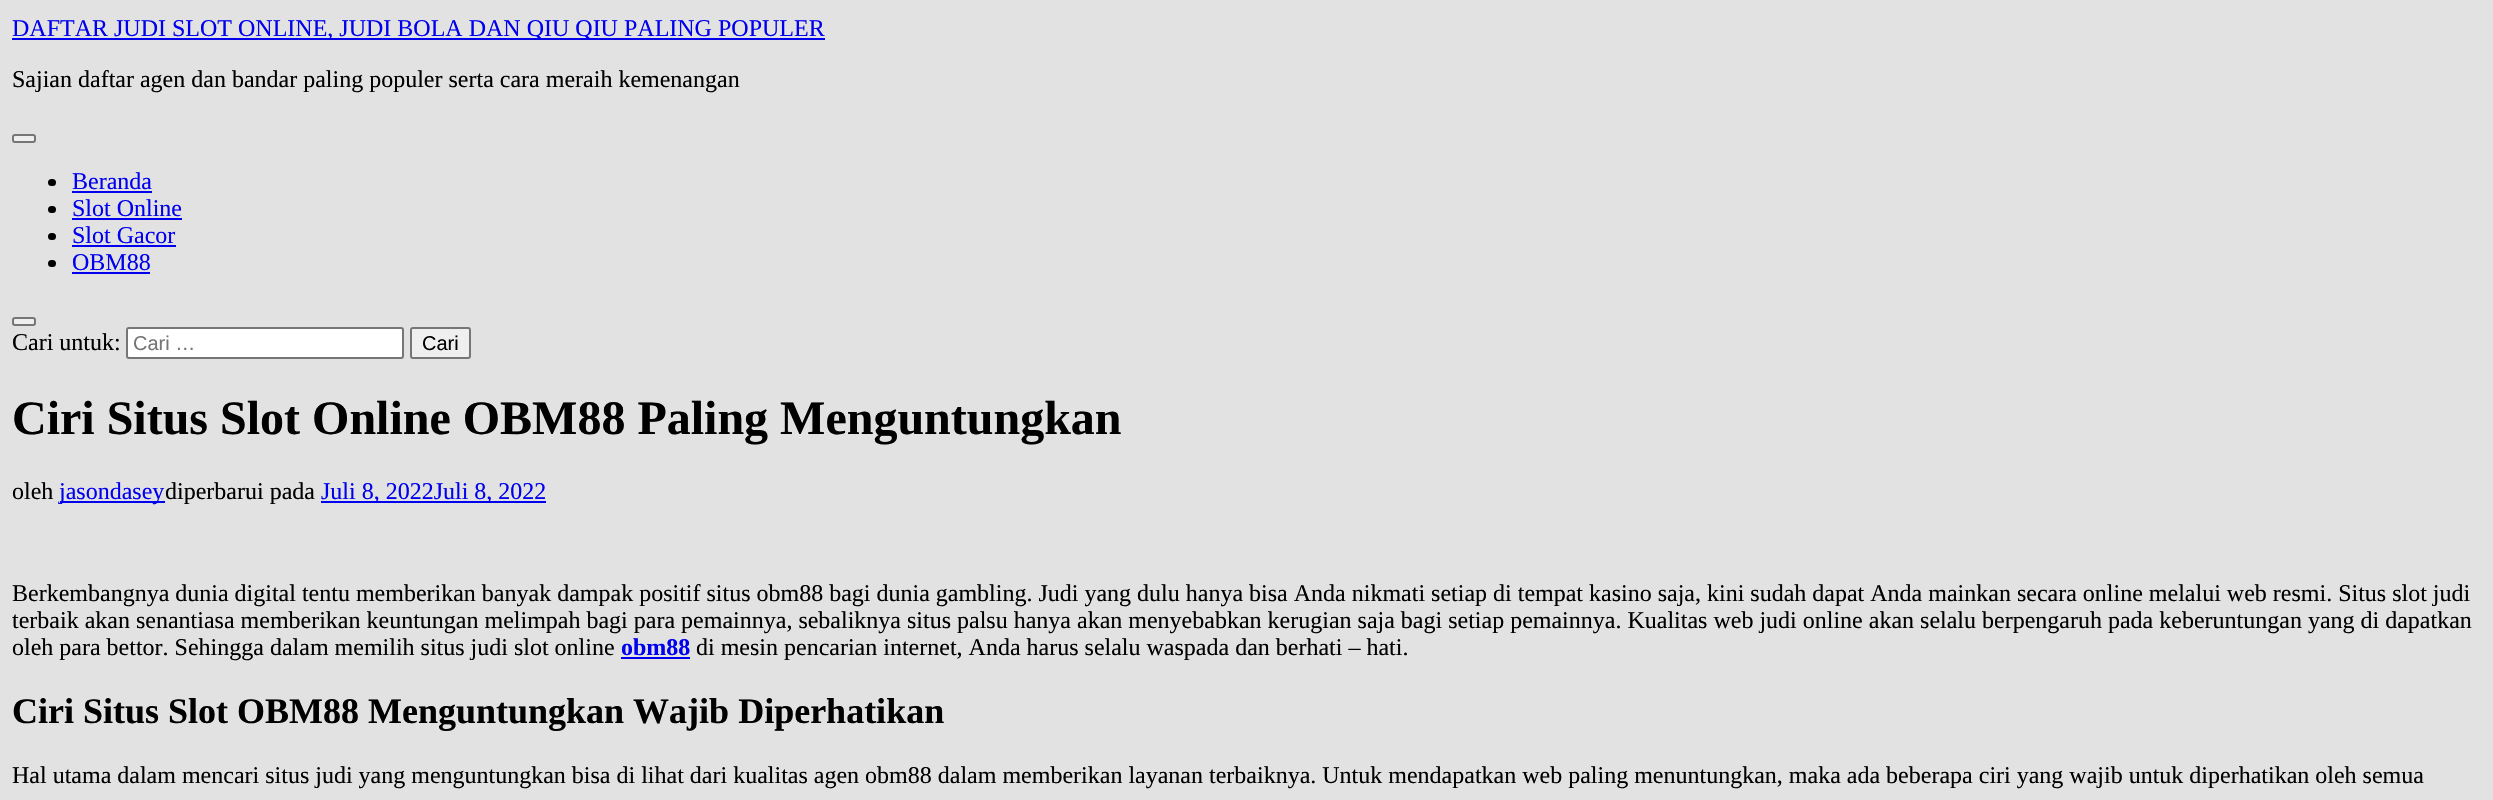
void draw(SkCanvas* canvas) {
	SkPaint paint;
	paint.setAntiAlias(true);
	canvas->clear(0xffe2e2e2);
	paint.setColor(0xff0000ee);
	canvas->drawRect(SkRect::MakeXYWH(12, 38, 813, 2), paint);
	SkFont f1(fontMgr->matchFamilyStyle("Liberation Serif", SkFontStyle::Normal()), 24);
	f1.setSubpixel(true);
	canvas->drawString("DAFTAR JUDI SLOT ONLINE, JUDI BOLA DAN QIU QIU PALING POPULER", 12, 36, f1, paint);
	paint.setColor(0xff000000);
	canvas->drawString("Sajian daftar agen dan bandar paling populer serta cara meraih kemenangan", 12, 87, f1, paint);
	paint.setColor(0xffefefef);
	canvas->drawRoundRect(SkRect::MakeXYWH(13, 135, 22, 7), 2, 2, paint);
	paint.setStroke(true);
	paint.setStrokeWidth(2);
	paint.setColor(0xff767676);
	canvas->drawRoundRect(SkRect::MakeXYWH(13, 135, 22, 7), 2, 2, paint);
	paint.setStroke(false);
	paint.setColor(0xff000000);
	canvas->drawRoundRect(SkRect::MakeXYWH(48, 179, 8, 7), 3.5, 3.5, paint);
	paint.setColor(0xff0000ee);
	canvas->drawString("Beranda", 72, 189, f1, paint);
	canvas->drawRect(SkRect::MakeXYWH(72, 191, 80, 2), paint);
	paint.setColor(0xff000000);
	canvas->drawRoundRect(SkRect::MakeXYWH(48, 206, 8, 7), 3.5, 3.5, paint);
	paint.setColor(0xff0000ee);
	canvas->drawString("Slot Online", 72, 216, f1, paint);
	canvas->drawRect(SkRect::MakeXYWH(72, 218, 110, 2), paint);
	paint.setColor(0xff000000);
	canvas->drawRoundRect(SkRect::MakeXYWH(48, 233, 8, 7), 3.5, 3.5, paint);
	paint.setColor(0xff0000ee);
	canvas->drawString("Slot Gacor", 72, 243, f1, paint);
	canvas->drawRect(SkRect::MakeXYWH(72, 245, 104, 2), paint);
	paint.setColor(0xff000000);
	canvas->drawRoundRect(SkRect::MakeXYWH(48, 260, 8, 7), 3.5, 3.5, paint);
	paint.setColor(0xff0000ee);
	canvas->drawString("OBM88", 72, 270, f1, paint);
	canvas->drawRect(SkRect::MakeXYWH(72, 272, 78, 2), paint);
	paint.setColor(0xffefefef);
	canvas->drawRoundRect(SkRect::MakeXYWH(13, 318, 22, 7), 2, 2, paint);
	paint.setStroke(true);
	paint.setColor(0xff767676);
	canvas->drawRoundRect(SkRect::MakeXYWH(13, 318, 22, 7), 2, 2, paint);
	paint.setStroke(false);
	paint.setColor(0xff000000);
	canvas->drawString("Cari untuk:", 12, 350, f1, paint);
	paint.setColor(0xffffffff);
	canvas->drawRoundRect(SkRect::MakeXYWH(127, 328, 276, 30), 2, 2, paint);
	paint.setStroke(true);
	paint.setColor(0xff767676);
	canvas->drawRoundRect(SkRect::MakeXYWH(127, 328, 276, 30), 2, 2, paint);
	SkFont f2(fontMgr->matchFamilyStyle("Liberation Sans", SkFontStyle::Normal()), 20);
	f2.setSubpixel(true);
	paint.setStroke(false);
	paint.setColor(0xff757575);
	canvas->drawString("Cari …", 133, 350, f2, paint);
	paint.setColor(0xffefefef);
	canvas->drawRoundRect(SkRect::MakeXYWH(411, 328, 59, 30), 2, 2, paint);
	paint.setStroke(true);
	paint.setColor(0xff767676);
	canvas->drawRoundRect(SkRect::MakeXYWH(411, 328, 59, 30), 2, 2, paint);
	paint.setStroke(false);
	paint.setColor(0xff000000);
	canvas->drawString("Cari", 422, 350, f2, paint);
	SkFont f3(fontMgr->matchFamilyStyle("Liberation Serif", SkFontStyle::Bold()), 48);
	f3.setSubpixel(true);
	canvas->drawString("Ciri Situs Slot Online OBM88 Paling Menguntungkan", 12, 434, f3, paint);
	canvas->drawString("oleh", 12, 499, f1, paint);
	paint.setColor(0xff0000ee);
	canvas->drawRect(SkRect::MakeXYWH(60, 501, 105, 2), paint);
	canvas->drawString("jasondasey", 59, 499, f1, paint);
	paint.setColor(0xff000000);
	canvas->drawString("diperbarui pada", 165, 499, f1, paint);
	paint.setColor(0xff0000ee);
	canvas->drawRect(SkRect::MakeXYWH(321, 501, 225, 2), paint);
	canvas->drawString("Juli 8, 2022Juli 8, 2022", 321, 499, f1, paint);
	paint.setColor(0xff000000);
	canvas->drawString("Berkembangnya dunia digital tentu memberikan banyak dampak positif situs obm88 bagi dunia gambling. Judi yang dulu hanya bisa Anda nikmati setiap di tempat kasino saja, kini sudah dapat Anda mainkan secara online melalui web resmi. Situs slot judi", 12, 601, f1, paint);
	canvas->drawString("terbaik akan senantiasa memberikan keuntungan melimpah bagi para pemainnya, sebaliknya situs palsu hanya akan menyebabkan kerugian saja bagi setiap pemainnya. Kualitas web judi online akan selalu berpengaruh pada keberuntungan yang di dapatkan", 12, 628, f1, paint);
	canvas->drawString("oleh para bettor. Sehingga dalam memilih situs judi slot online", 12, 655, f1, paint);
	SkFont f4(fontMgr->matchFamilyStyle("Liberation Serif", SkFontStyle::Bold()), 24);
	f4.setSubpixel(true);
	paint.setColor(0xff0000ee);
	canvas->drawString("obm88", 621, 655, f4, paint);
	canvas->drawRect(SkRect::MakeXYWH(621, 657, 69, 2), paint);
	paint.setColor(0xff000000);
	canvas->drawString("di mesin pencarian internet, Anda harus selalu waspada dan berhati – hati.", 696, 655, f1, paint);
	SkFont f5(fontMgr->matchFamilyStyle("Liberation Serif", SkFontStyle::Bold()), 36);
	f5.setSubpixel(true);
	canvas->drawString("Ciri Situs Slot OBM88 Menguntungkan Wajib Diperhatikan", 12, 723, f5, paint);
	canvas->drawString("Hal utama dalam mencari situs judi yang menguntungkan bisa di lihat dari kualitas agen obm88 dalam memberikan layanan terbaiknya. Untuk mendapatkan web paling menuntungkan, maka ada beberapa ciri yang wajib untuk diperhatikan oleh semua", 12, 783, f1, paint);
}
